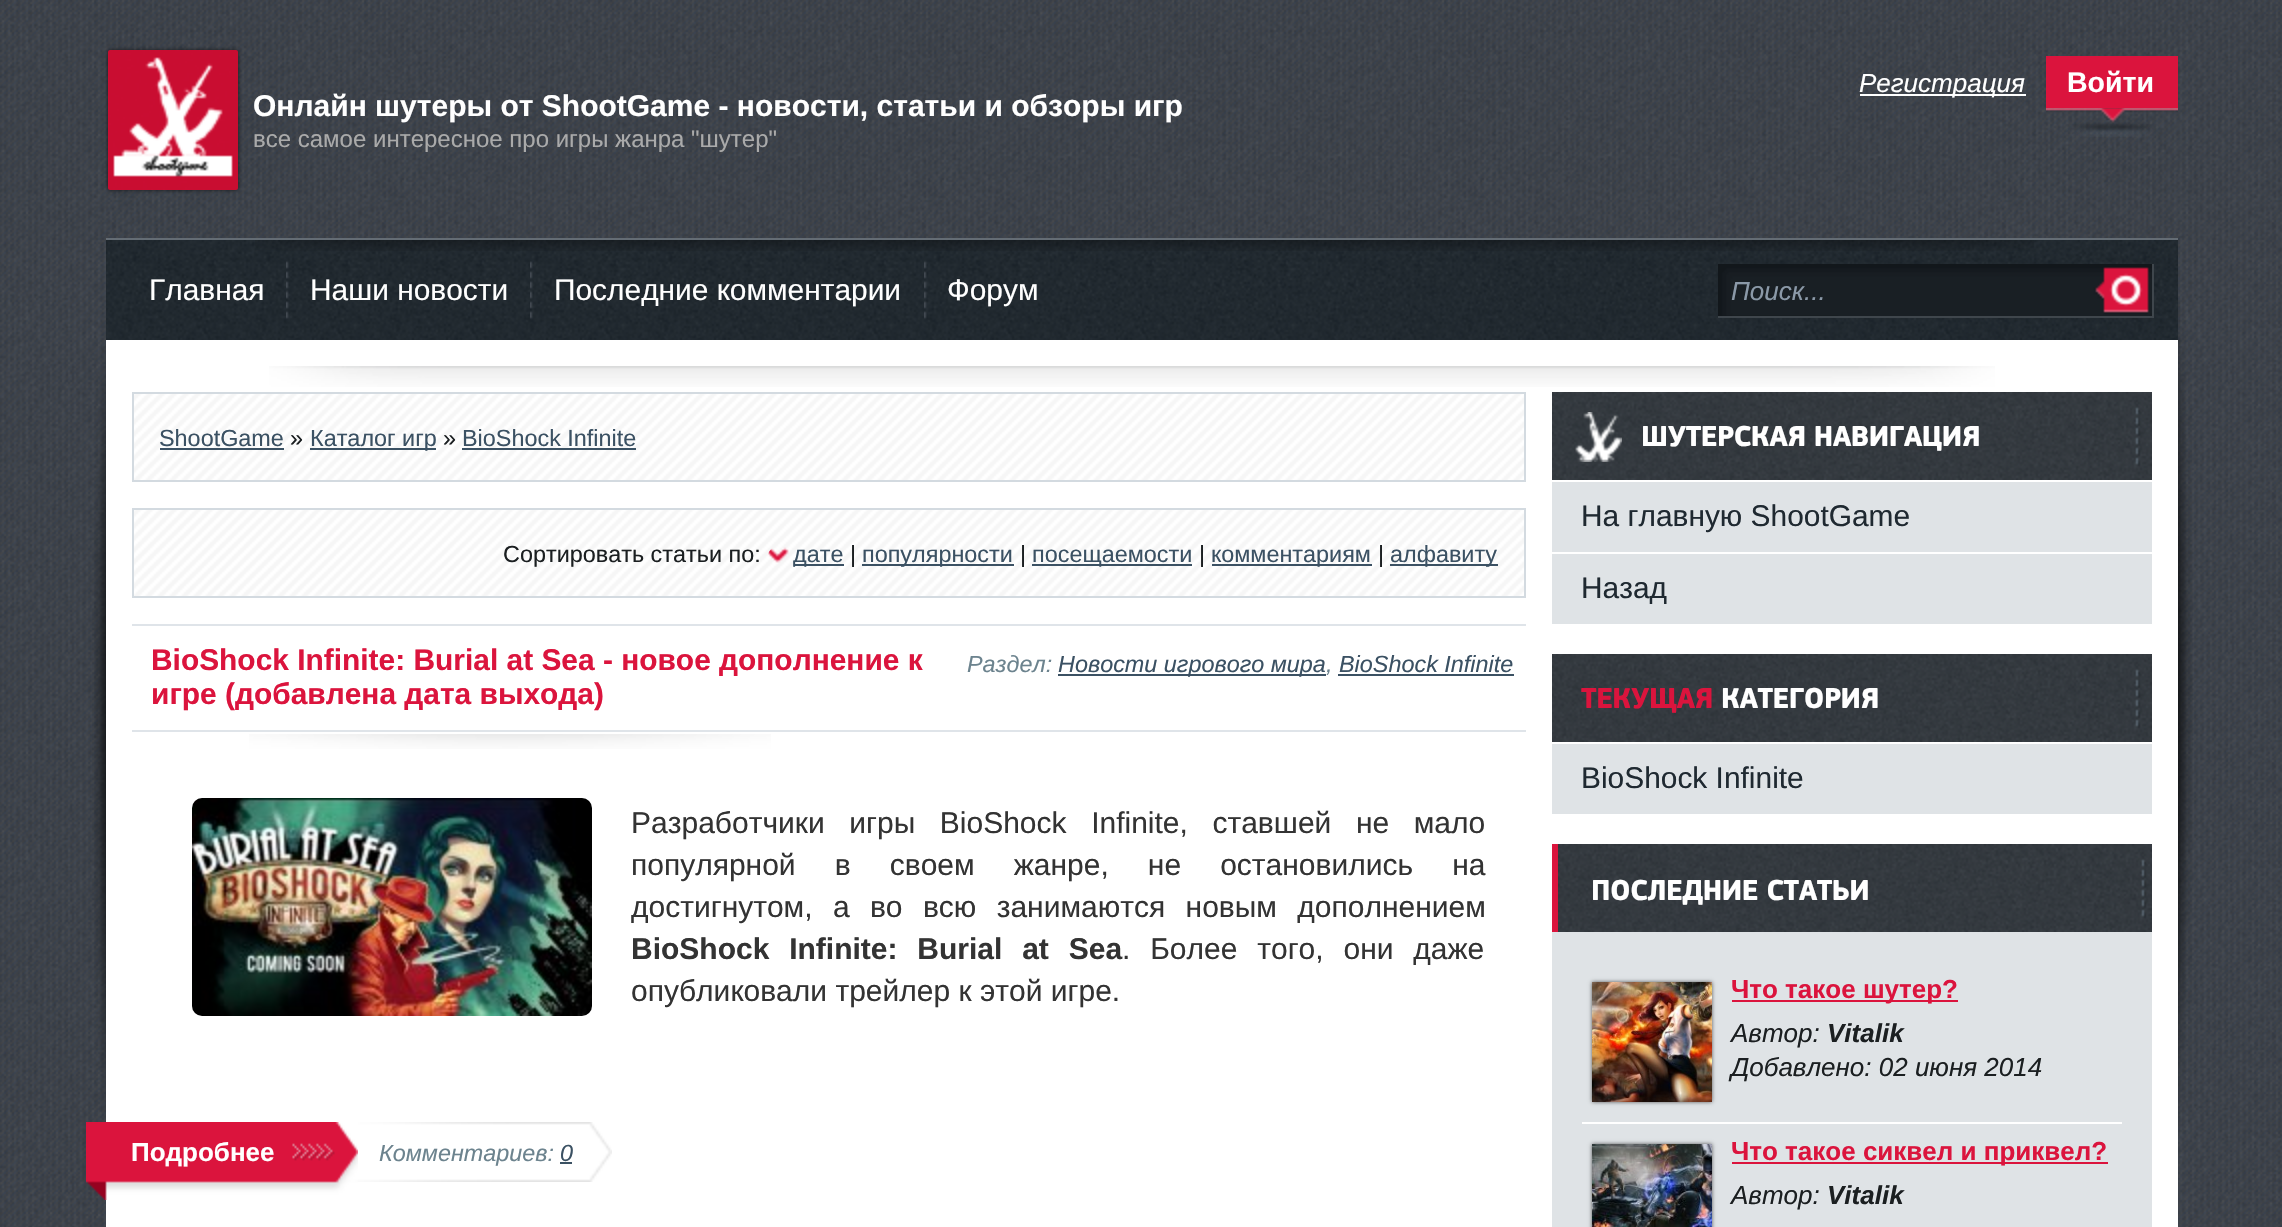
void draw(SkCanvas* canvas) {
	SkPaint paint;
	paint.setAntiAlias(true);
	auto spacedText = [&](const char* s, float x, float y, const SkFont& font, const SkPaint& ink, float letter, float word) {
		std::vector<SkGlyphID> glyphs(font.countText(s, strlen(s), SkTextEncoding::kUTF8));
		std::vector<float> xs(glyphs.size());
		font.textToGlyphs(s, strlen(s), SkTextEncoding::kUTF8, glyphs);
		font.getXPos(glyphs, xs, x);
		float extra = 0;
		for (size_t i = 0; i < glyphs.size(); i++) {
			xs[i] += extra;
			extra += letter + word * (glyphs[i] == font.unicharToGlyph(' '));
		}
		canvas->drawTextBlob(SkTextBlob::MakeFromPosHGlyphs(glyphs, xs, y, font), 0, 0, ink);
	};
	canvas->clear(0xffffffff);
	canvas->drawImageRect(SkImages::DeferredFromEncodedData(SkData::MakeFromFileName("img1.png")), SkRect::MakeXYWH(0, 0, 2282, 1227), SkSamplingOptions());
	paint.setColor(0xffffffff);
	canvas->drawRect(SkRect::MakeXYWH(1860, 94, 166, 2), paint);
	SkFont f1(fontMgr->matchFamilyStyle("Liberation Sans", SkFontStyle::Italic()), 26);
	f1.setSubpixel(true);
	canvas->drawString("Регистрация", 1859, 92, f1, paint);
	canvas->drawImageRect(SkImages::DeferredFromEncodedData(SkData::MakeFromFileName("img2.png")), SkRect::MakeXYWH(2046, 108, 132, 29), SkSamplingOptions());
	paint.setColor(0xffdb143d);
	canvas->drawRect(SkRect::MakeXYWH(2046, 56, 132, 52), paint);
	SkFont f2(fontMgr->matchFamilyStyle("Liberation Sans", SkFontStyle::Bold()), 28.5);
	f2.setSubpixel(true);
	paint.setColor(0xffffffff);
	canvas->drawString("Войти", 2067, 92, f2, paint);
	paint.setColor(0x9c000000);
	paint.setMaskFilter(SkMaskFilter::MakeBlur(kNormal_SkBlurStyle, 2));
	canvas->drawRoundRect(SkRect::MakeXYWH(108, 50, 130, 140), 2, 2, paint);
	paint.setMaskFilter(nullptr);
	canvas->drawImageRect(SkImages::DeferredFromEncodedData(SkData::MakeFromFileName("img3.png")), SkRect::MakeXYWH(108, 50, 130, 140), SkSamplingOptions());
	SkFont f3(fontMgr->matchFamilyStyle("Liberation Sans", SkFontStyle::Bold()), 30);
	f3.setSubpixel(true);
	paint.setColor(0xffffffff);
	canvas->drawString("Онлайн шутеры от ShootGame - новости, статьи и обзоры игр", 253, 116, f3, paint);
	SkFont f4(fontMgr->matchFamilyStyle("Liberation Sans", SkFontStyle::Normal()), 24);
	f4.setSubpixel(true);
	paint.setColor(0xffaaaaaa);
	canvas->drawString("все самое интересное про игры жанра \"шутер\"", 253, 147, f4, paint);
	canvas->drawImageRect(SkImages::DeferredFromEncodedData(SkData::MakeFromFileName("img4.png")), SkRect::MakeXYWH(92, 300, 14, 822), SkSamplingOptions());
	canvas->drawImageRect(SkImages::DeferredFromEncodedData(SkData::MakeFromFileName("img5.png")), SkRect::MakeXYWH(2178, 298, 15, 838), SkSamplingOptions());
	canvas->drawImageRect(SkImages::DeferredFromEncodedData(SkData::MakeFromFileName("img6.png")), SkRect::MakeXYWH(106, 240, 2072, 100), SkSamplingOptions());
	canvas->drawImageRect(SkImages::DeferredFromEncodedData(SkData::MakeFromFileName("img7.png")), SkRect::MakeXYWH(255, 240, 1779, 11), SkSamplingOptions());
	paint.setColor(0xff646c74);
	canvas->drawRect(SkRect::MakeXYWH(106, 238, 2072, 2), paint);
	SkFont f5(fontMgr->matchFamilyStyle("Liberation Sans", SkFontStyle::Normal()), 29.9);
	f5.setSubpixel(true);
	paint.setColor(0xffffffff);
	canvas->drawString("Главная", 149, 300, f5, paint);
	canvas->drawImageRect(SkImages::DeferredFromEncodedData(SkData::MakeFromFileName("img8.png")), SkRect::MakeXYWH(286, 261, 3, 58), SkSamplingOptions());
	canvas->drawString("Наши новости", 310, 300, f5, paint);
	canvas->drawImageRect(SkImages::DeferredFromEncodedData(SkData::MakeFromFileName("img9.png")), SkRect::MakeXYWH(530, 261, 3, 58), SkSamplingOptions());
	canvas->drawString("Последние комментарии", 554, 300, f5, paint);
	canvas->drawImageRect(SkImages::DeferredFromEncodedData(SkData::MakeFromFileName("img10.png")), SkRect::MakeXYWH(924, 261, 3, 58), SkSamplingOptions());
	canvas->drawString("Форум", 947, 300, f5, paint);
	canvas->drawImageRect(SkImages::DeferredFromEncodedData(SkData::MakeFromFileName("img11.png")), SkRect::MakeXYWH(1718, 264, 374, 52), SkSamplingOptions());
	paint.setColor(0xff3f464c);
	canvas->drawRect(SkRect::MakeXYWH(2152, 264, 2, 54), paint);
	canvas->drawRect(SkRect::MakeXYWH(1718, 316, 436, 2), paint);
	paint.setColor(0xff8b99a8);
	canvas->drawString("Поиск...", 1731, 300, f1, paint);
	canvas->drawImageRect(SkImages::DeferredFromEncodedData(SkData::MakeFromFileName("img12.png")), SkRect::MakeXYWH(2092, 264, 60, 52), SkSamplingOptions());
	paint.setColor(0xffffffff);
	canvas->drawRect(SkRect::MakeXYWH(106, 340, 2072, 887), paint);
	canvas->drawImageRect(SkImages::DeferredFromEncodedData(SkData::MakeFromFileName("img13.png")), SkRect::MakeXYWH(269, 366, 1726, 21), SkSamplingOptions());
	canvas->drawImageRect(SkImages::DeferredFromEncodedData(SkData::MakeFromFileName("img14.png")), SkRect::MakeXYWH(134, 394, 1390, 86), SkSamplingOptions());
	paint.setStroke(true);
	paint.setStrokeWidth(2);
	paint.setColor(0xffd3dae0);
	canvas->drawRect(SkRect::MakeXYWH(133, 393, 1392, 88), paint);
	SkFont f6(fontMgr->matchFamilyStyle("Liberation Sans", SkFontStyle::Normal()), 23.4);
	f6.setSubpixel(true);
	paint.setStroke(false);
	paint.setColor(0xff3b5163);
	canvas->drawString("ShootGame", 159, 446, f6, paint);
	canvas->drawRect(SkRect::MakeXYWH(160, 448, 124, 2), paint);
	paint.setColor(0xff1b1f21);
	canvas->drawString("»", 290, 446, f6, paint);
	paint.setColor(0xff3b5163);
	canvas->drawRect(SkRect::MakeXYWH(310, 448, 126, 2), paint);
	canvas->drawString("Каталог игр", 310, 446, f6, paint);
	paint.setColor(0xff1b1f21);
	canvas->drawString("»", 443, 446, f6, paint);
	paint.setColor(0xff3b5163);
	canvas->drawString("BioShock Infinite", 462, 446, f6, paint);
	canvas->drawRect(SkRect::MakeXYWH(462, 448, 174, 2), paint);
	canvas->drawImageRect(SkImages::DeferredFromEncodedData(SkData::MakeFromFileName("img14.png")), SkRect::MakeXYWH(134, 510, 1390, 86), SkSamplingOptions());
	paint.setStroke(true);
	paint.setColor(0xffd3dae0);
	canvas->drawRect(SkRect::MakeXYWH(133, 509, 1392, 88), paint);
	paint.setStroke(false);
	paint.setColor(0xff1b1f21);
	canvas->drawString("Сортировать статьи по:", 503, 562, f6, paint);
	canvas->drawImageRect(SkImages::DeferredFromEncodedData(SkData::MakeFromFileName("img15.png")), SkRect::MakeXYWH(768, 547, 21, 16), SkSamplingOptions());
	paint.setColor(0xff3b5163);
	canvas->drawRect(SkRect::MakeXYWH(794, 564, 50, 2), paint);
	canvas->drawString("дате", 793, 562, f6, paint);
	paint.setColor(0xff1b1f21);
	canvas->drawString("|", 850, 562, f6, paint);
	paint.setColor(0xff3b5163);
	canvas->drawRect(SkRect::MakeXYWH(862, 564, 152, 2), paint);
	canvas->drawString("популярности", 862, 562, f6, paint);
	paint.setColor(0xff1b1f21);
	canvas->drawString("|", 1020, 562, f6, paint);
	paint.setColor(0xff3b5163);
	canvas->drawRect(SkRect::MakeXYWH(1032, 564, 160, 2), paint);
	canvas->drawString("посещаемости", 1032, 562, f6, paint);
	paint.setColor(0xff1b1f21);
	canvas->drawString("|", 1199, 562, f6, paint);
	paint.setColor(0xff3b5163);
	canvas->drawRect(SkRect::MakeXYWH(1212, 564, 160, 2), paint);
	canvas->drawString("комментариям", 1211, 562, f6, paint);
	paint.setColor(0xff1b1f21);
	canvas->drawString("|", 1378, 562, f6, paint);
	paint.setColor(0xff3b5163);
	canvas->drawRect(SkRect::MakeXYWH(1390, 564, 108, 2), paint);
	canvas->drawString("алфавиту", 1390, 562, f6, paint);
	paint.setColor(0xffdfe4e9);
	canvas->drawRect(SkRect::MakeXYWH(132, 624, 1394, 2), paint);
	SkFont f7(fontMgr->matchFamilyStyle("Liberation Sans", SkFontStyle::Bold()), 29.9);
	f7.setSubpixel(true);
	paint.setColor(0xffdb143d);
	canvas->drawString("BioShock Infinite: Burial at Sea - новое дополнение к", 151, 670, f7, paint);
	canvas->drawString("игре (добавлена дата выхода)", 151, 704, f7, paint);
	SkFont f8(fontMgr->matchFamilyStyle("Liberation Sans", SkFontStyle::Italic()), 23.4);
	f8.setSubpixel(true);
	paint.setColor(0xff6c838e);
	canvas->drawString("Раздел:", 967, 672, f8, paint);
	paint.setColor(0xff3b5163);
	canvas->drawRect(SkRect::MakeXYWH(1058, 674, 268, 2), paint);
	canvas->drawString("Новости игрового мира", 1058, 672, f8, paint);
	paint.setColor(0xff6c838e);
	canvas->drawString(",", 1326, 672, f8, paint);
	paint.setColor(0xff3b5163);
	canvas->drawRect(SkRect::MakeXYWH(1338, 674, 176, 2), paint);
	canvas->drawString("BioShock Infinite", 1339, 672, f8, paint);
	canvas->drawImageRect(SkImages::DeferredFromEncodedData(SkData::MakeFromFileName("img16.png")), SkRect::MakeXYWH(249, 734, 522, 15), SkSamplingOptions());
	paint.setColor(0xffdfe4e9);
	canvas->drawRect(SkRect::MakeXYWH(132, 730, 1394, 2), paint);
	canvas->drawImageRect(SkImages::DeferredFromEncodedData(SkData::MakeFromFileName("img17.png")), SkRect::MakeXYWH(192, 798, 400, 218), SkSamplingOptions());
	SkFont f9(fontMgr->matchFamilyStyle("Liberation Sans", SkFontStyle::Normal()), 30);
	f9.setSubpixel(true);
	paint.setColor(0xff333333);
	spacedText("Разработчики игры BioShock Infinite, ставшей не мало", 631, 833, f9, paint, 0, 16.25);
	spacedText("популярной в своем жанре, не остановились на", 631, 875, f9, paint, 0, 30.75);
	spacedText("достигнутом, а во всю занимаются новым дополнением", 631, 917, f9, paint, 0, 12);
	spacedText("BioShock Infinite: Burial at Sea", 631, 959, f3, paint, 0, 11.5);
	spacedText(". Более того, они даже", 1122, 959, f9, paint, 0, 11.5);
	canvas->drawString("опубликовали трейлер к этой игре.", 631, 1001, f9, paint);
	canvas->drawImageRect(SkImages::DeferredFromEncodedData(SkData::MakeFromFileName("img18.png")), SkRect::MakeXYWH(86, 1122, 46, 78), SkSamplingOptions());
	canvas->drawImageRect(SkImages::DeferredFromEncodedData(SkData::MakeFromFileName("img19.png")), SkRect::MakeXYWH(132, 1122, 226, 78), SkSamplingOptions());
	SkFont f10(fontMgr->matchFamilyStyle("Liberation Sans", SkFontStyle::Bold()), 26);
	f10.setSubpixel(true);
	paint.setColor(0xffffffff);
	canvas->drawString("Подробнее", 131, 1161, f10, paint);
	canvas->drawImageRect(SkImages::DeferredFromEncodedData(SkData::MakeFromFileName("img20.png")), SkRect::MakeXYWH(358, 1122, 254, 60), SkSamplingOptions());
	paint.setColor(0xff6c838e);
	canvas->drawString("Комментариев:", 379, 1161, f8, paint);
	paint.setColor(0xff3b5163);
	canvas->drawString("0", 560, 1161, f8, paint);
	canvas->drawRect(SkRect::MakeXYWH(560, 1162, 12, 2), paint);
	paint.setColor(0xffdfe3e6);
	canvas->drawRect(SkRect::MakeXYWH(1552, 482, 600, 142), paint);
	canvas->drawImageRect(SkImages::DeferredFromEncodedData(SkData::MakeFromFileName("img21.png")), SkRect::MakeXYWH(1552, 392, 600, 88), SkSamplingOptions());
	canvas->drawImageRect(SkImages::DeferredFromEncodedData(SkData::MakeFromFileName("img22.png")), SkRect::MakeXYWH(1575, 412, 47, 50), SkSamplingOptions());
	SkFont f11(fontMgr->matchFamilyStyle("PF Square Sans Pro", SkFontStyle::Bold()), 30);
	f11.setSubpixel(true);
	paint.setColor(0xffffffff);
	spacedText("ШУТЕРСКАЯ НАВИГАЦИЯ", 1641, 446, f11, paint, -0.5, 0);
	canvas->drawRect(SkRect::MakeXYWH(1552, 552, 600, 2), paint);
	paint.setColor(0xff1f2931);
	canvas->drawString("На главную ShootGame", 1581, 526, f5, paint);
	canvas->drawString("Назад", 1581, 598, f5, paint);
	paint.setColor(0xffdfe3e6);
	canvas->drawRect(SkRect::MakeXYWH(1552, 744, 600, 70), paint);
	canvas->drawImageRect(SkImages::DeferredFromEncodedData(SkData::MakeFromFileName("img21.png")), SkRect::MakeXYWH(1552, 654, 600, 88), SkSamplingOptions());
	paint.setColor(0xffdb143d);
	spacedText("ТЕКУЩАЯ", 1581, 708, f11, paint, -0.5, 0);
	paint.setColor(0xffffffff);
	spacedText("КАТЕГОРИЯ", 1721, 708, f11, paint, -0.5, 0);
	paint.setColor(0xff1f2931);
	canvas->drawString("BioShock Infinite", 1581, 788, f5, paint);
	paint.setColor(0xffdb143d);
	canvas->drawRect(SkRect::MakeXYWH(1552, 844, 6, 88), paint);
	canvas->drawImageRect(SkImages::DeferredFromEncodedData(SkData::MakeFromFileName("img23.png")), SkRect::MakeXYWH(1558, 844, 594, 88), SkSamplingOptions());
	paint.setColor(0xffffffff);
	spacedText("ПОСЛЕДНИЕ СТАТЬИ", 1591, 900, f11, paint, -0.5, 0);
	paint.setColor(0xffdfe3e6);
	canvas->drawRect(SkRect::MakeXYWH(1552, 932, 600, 295), paint);
	paint.setColor(0xffffffff);
	canvas->drawRect(SkRect::MakeXYWH(1582, 1122, 540, 2), paint);
	paint.setColor(0x9c000000);
	paint.setMaskFilter(SkMaskFilter::MakeBlur(kNormal_SkBlurStyle, 2));
	canvas->drawRect(SkRect::MakeXYWH(1592, 982, 120, 120), paint);
	paint.setMaskFilter(nullptr);
	canvas->drawImageRect(SkImages::DeferredFromEncodedData(SkData::MakeFromFileName("img24.png")), SkRect::MakeXYWH(1592, 982, 120, 120), SkSamplingOptions());
	paint.setColor(0xffdb143d);
	canvas->drawRect(SkRect::MakeXYWH(1732, 1000, 226, 2), paint);
	canvas->drawString("Что такое шутер?", 1731, 998, f10, paint);
	paint.setColor(0xff1b1f21);
	canvas->drawString("Автор:", 1731, 1042, f1, paint);
	SkFont f12(fontMgr->matchFamilyStyle("Liberation Sans", SkFontStyle::BoldItalic()), 26);
	f12.setSubpixel(true);
	canvas->drawString("Vitalik", 1827, 1042, f12, paint);
	canvas->drawString("Добавлено: 02 июня 2014", 1731, 1076, f1, paint);
	paint.setColor(0x9c000000);
	paint.setMaskFilter(SkMaskFilter::MakeBlur(kNormal_SkBlurStyle, 2));
	canvas->drawRect(SkRect::MakeXYWH(1592, 1144, 120, 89), paint);
	paint.setMaskFilter(nullptr);
	canvas->drawImageRect(SkImages::DeferredFromEncodedData(SkData::MakeFromFileName("img25.png")), SkRect::MakeXYWH(1592, 1144, 120, 83), SkSamplingOptions());
	paint.setColor(0xffdb143d);
	canvas->drawRect(SkRect::MakeXYWH(1732, 1162, 376, 2), paint);
	canvas->drawString("Что такое сиквел и приквел?", 1731, 1160, f10, paint);
	paint.setColor(0xff1b1f21);
	canvas->drawString("Автор:", 1731, 1204, f1, paint);
	canvas->drawString("Vitalik", 1827, 1204, f12, paint);
}
